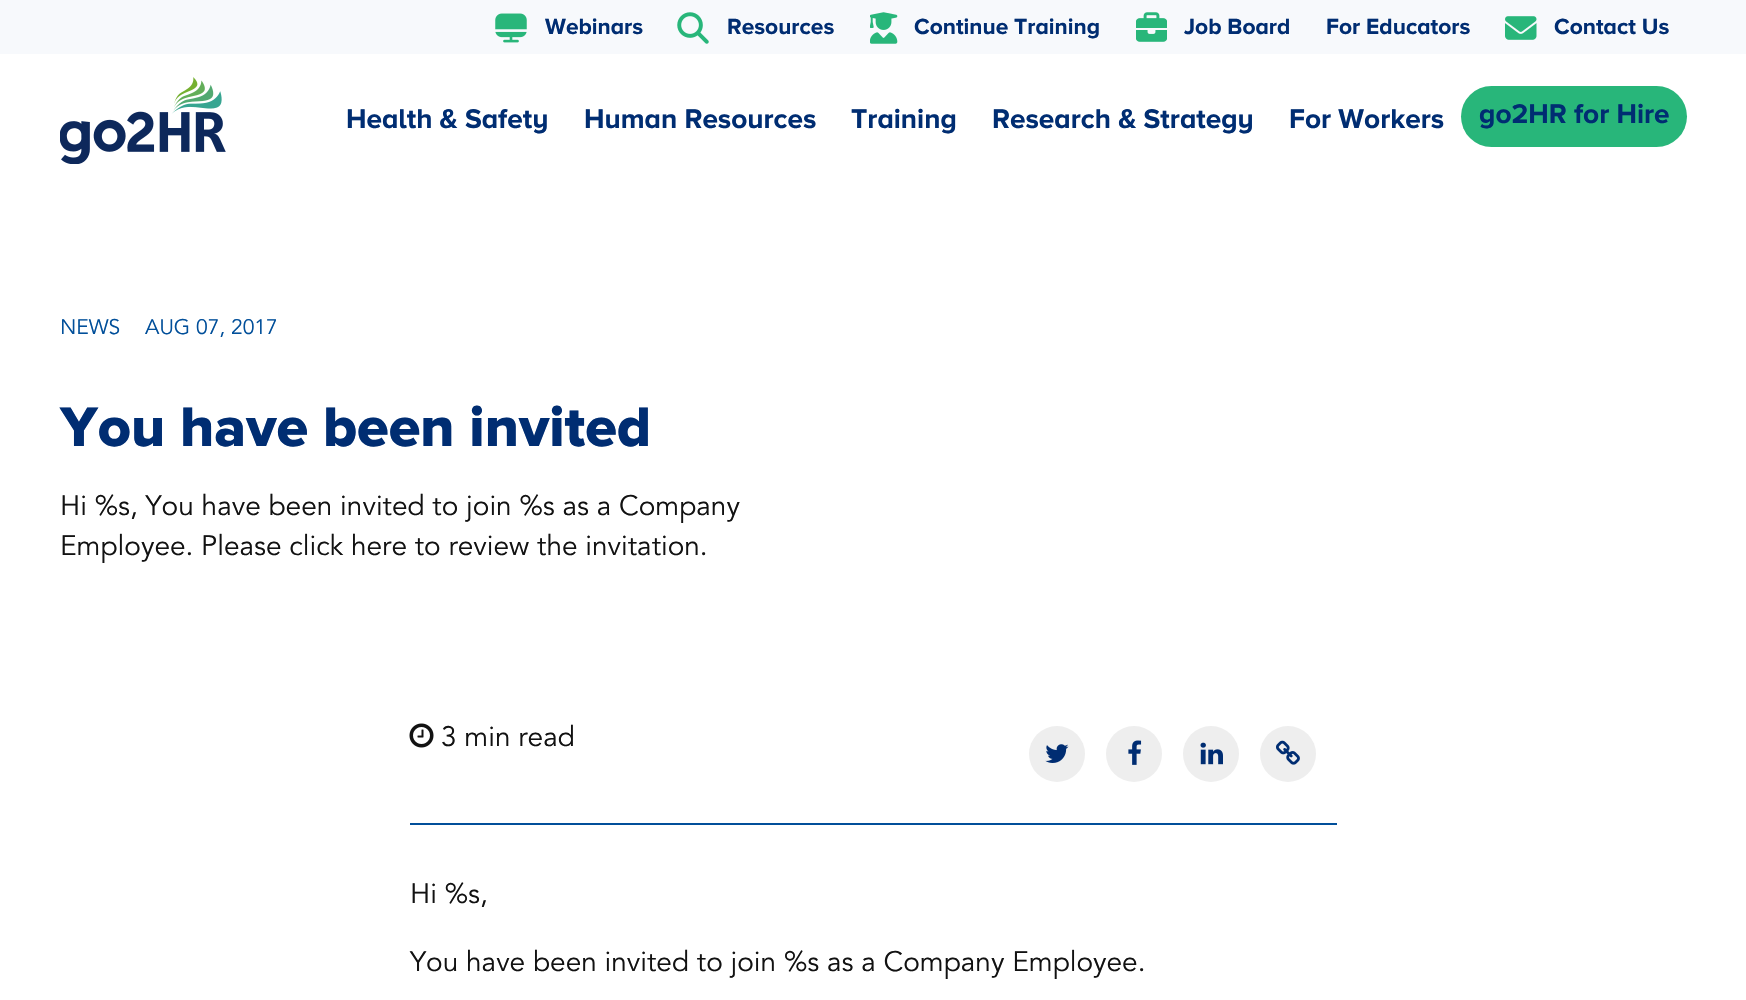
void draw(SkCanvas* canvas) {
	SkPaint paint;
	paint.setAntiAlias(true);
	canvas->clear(0xffffffff);
	paint.setColor(0xfff7f9fc);
	canvas->drawRect(SkRect::MakeXYWH(0, 0, 1746, 54), paint);
	canvas->drawImageRect(SkImages::DeferredFromEncodedData(SkData::MakeFromFileName("img1.png")), SkRect::MakeXYWH(495, 13, 32, 30), SkSamplingOptions());
	SkFont f1(fontMgr->matchFamilyStyle("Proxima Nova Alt", SkFontStyle::Bold()), 22.75);
	f1.setSubpixel(true);
	paint.setColor(0xff002d72);
	canvas->drawString("Webinars", 545, 34, f1, paint);
	canvas->drawImageRect(SkImages::DeferredFromEncodedData(SkData::MakeFromFileName("img2.png")), SkRect::MakeXYWH(677, 12, 32, 32), SkSamplingOptions());
	canvas->drawString("Resources", 727, 34, f1, paint);
	canvas->drawImageRect(SkImages::DeferredFromEncodedData(SkData::MakeFromFileName("img3.png")), SkRect::MakeXYWH(870, 12, 28, 32), SkSamplingOptions());
	canvas->drawString("Continue Training", 914, 34, f1, paint);
	canvas->drawImageRect(SkImages::DeferredFromEncodedData(SkData::MakeFromFileName("img4.png")), SkRect::MakeXYWH(1136, 12, 31, 30), SkSamplingOptions());
	canvas->drawString("Job Board", 1184, 34, f1, paint);
	canvas->drawString("For Educators", 1326, 34, f1, paint);
	canvas->drawImageRect(SkImages::DeferredFromEncodedData(SkData::MakeFromFileName("img5.png")), SkRect::MakeXYWH(1505, 16, 32, 24), SkSamplingOptions());
	canvas->drawString("Contact Us", 1554, 34, f1, paint);
	canvas->drawImageRect(SkImages::DeferredFromEncodedData(SkData::MakeFromFileName("img6.png")), SkRect::MakeXYWH(60, 77, 166, 87), SkSamplingOptions());
	SkFont f2(fontMgr->matchFamilyStyle("Proxima Nova Alt", SkFontStyle::Bold()), 28);
	f2.setSubpixel(true);
	canvas->drawString("Health & Safety", 346, 128, f2, paint);
	canvas->drawString("Human Resources", 584, 128, f2, paint);
	canvas->drawString("Training", 851, 128, f2, paint);
	canvas->drawString("Research & Strategy", 992, 128, f2, paint);
	canvas->drawString("For Workers", 1289, 128, f2, paint);
	paint.setColor(0xff28b67a);
	canvas->drawRoundRect(SkRect::MakeXYWH(1461, 86, 226, 61), 30.5, 30.5, paint);
	paint.setColor(0xff002d72);
	canvas->drawString("go2HR for Hire", 1479, 123, f2, paint);
	SkFont f3(fontMgr->matchFamilyStyle("Avenir", SkFontStyle::Normal()), 21);
	f3.setSubpixel(true);
	paint.setColor(0xff014f9a);
	canvas->drawString("NEWS", 60, 334, f3, paint);
	canvas->drawString("AUG 07, 2017", 145, 334, f3, paint);
	SkFont f4(fontMgr->matchFamilyStyle("Proxima Nova", SkFontStyle(800, SkFontStyle::kNormal_Width, SkFontStyle::kUpright_Slant)), 57.75);
	f4.setSubpixel(true);
	paint.setColor(0xff002d72);
	canvas->drawString("You have been invited", 60, 446, f4, paint);
	SkFont f5(fontMgr->matchFamilyStyle("Avenir", SkFontStyle::Normal()), 28);
	f5.setSubpixel(true);
	paint.setColor(0xff121212);
	canvas->drawString("Hi %s, You have been invited to join %s as a Company", 60, 515, f5, paint);
	canvas->drawString("Employee. Please click here to review the invitation.", 60, 555, f5, paint);
	paint.setColor(0xff014f9a);
	canvas->drawRect(SkRect::MakeXYWH(410, 823, 927, 2), paint);
	canvas->drawImageRect(SkImages::DeferredFromEncodedData(SkData::MakeFromFileName("img7.png")), SkRect::MakeXYWH(409, 723, 25, 25), SkSamplingOptions());
	paint.setColor(0xff121212);
	canvas->drawString("3 min read", 441, 746, f5, paint);
	paint.setColor(0xffeeeeee);
	canvas->drawCircle(1057, 754, 28, paint);
	canvas->drawImageRect(SkImages::DeferredFromEncodedData(SkData::MakeFromFileName("img8.png")), SkRect::MakeXYWH(1045, 744, 24, 19), SkSamplingOptions());
	canvas->drawCircle(1134, 754, 28, paint);
	canvas->drawImageRect(SkImages::DeferredFromEncodedData(SkData::MakeFromFileName("img9.png")), SkRect::MakeXYWH(1128, 740, 14, 25), SkSamplingOptions());
	canvas->drawCircle(1211, 754, 28, paint);
	canvas->drawImageRect(SkImages::DeferredFromEncodedData(SkData::MakeFromFileName("img10.png")), SkRect::MakeXYWH(1200, 742, 23, 23), SkSamplingOptions());
	canvas->drawCircle(1288, 754, 28, paint);
	canvas->drawImageRect(SkImages::DeferredFromEncodedData(SkData::MakeFromFileName("img11.png")), SkRect::MakeXYWH(1276, 740, 24, 25), SkSamplingOptions());
	paint.setColor(0xff121212);
	canvas->drawString("Hi %s,", 410, 903, f5, paint);
	canvas->drawString("You have been invited to join %s as a Company Employee.", 410, 971, f5, paint);
}
